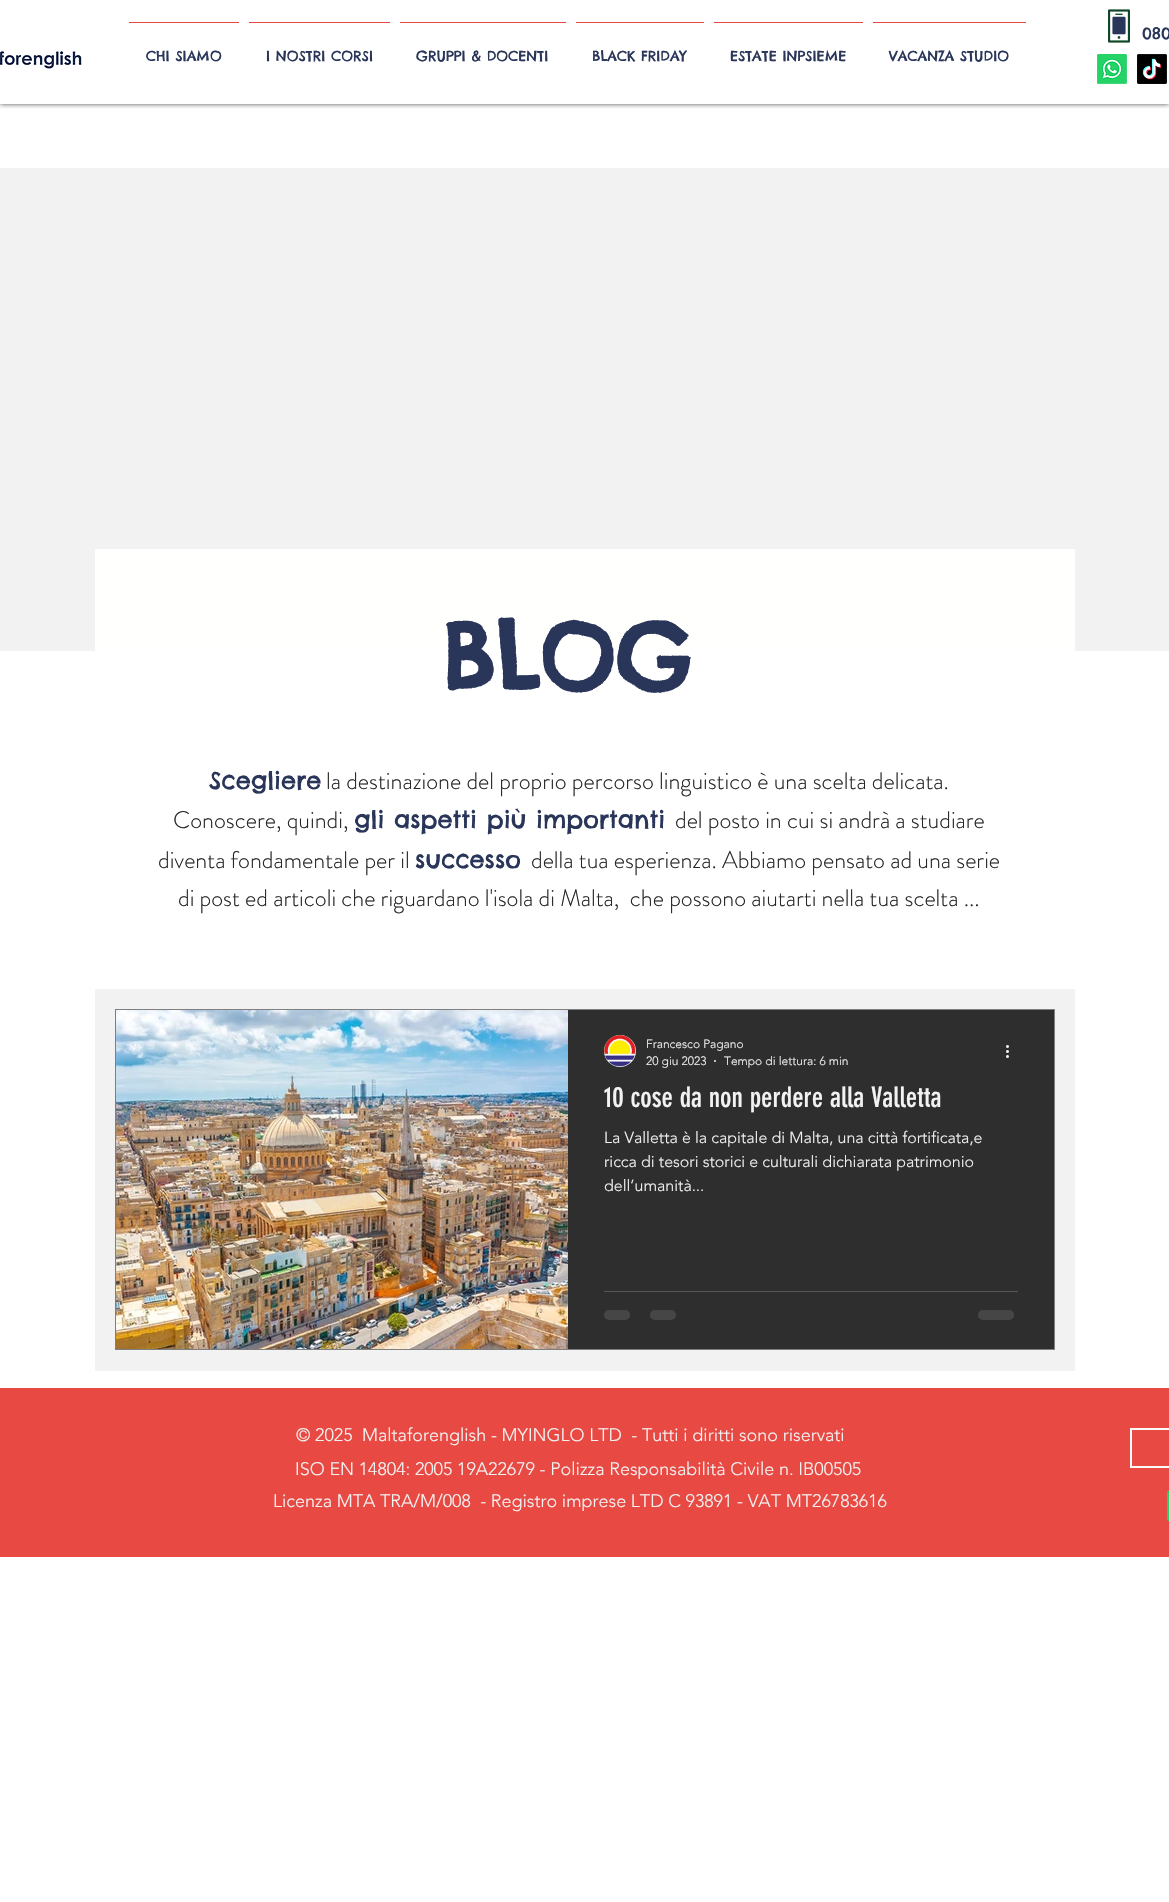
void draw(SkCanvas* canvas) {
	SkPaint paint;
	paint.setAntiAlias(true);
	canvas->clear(0xffffffff);
	canvas->save();
	canvas->clipRect(SkRect::MakeXYWH(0, 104, 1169, 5));
	paint.setColor(0xb3000000);
	paint.setMaskFilter(SkMaskFilter::MakeBlur(kNormal_SkBlurStyle, 2.5));
	canvas->drawRect(SkRect::MakeXYWH(0, 0, 1169, 104), paint);
	paint.setMaskFilter(nullptr);
	canvas->restore();
	canvas->drawImageRect(SkImages::DeferredFromEncodedData(SkData::MakeFromFileName("img1.png")), SkRect::MakeXYWH(1108, 9, 22, 34), SkSamplingOptions());
	SkFont f1(fontMgr->matchFamilyStyle("Chelsea Market", SkFontStyle::Normal()), 16);
	f1.setSubpixel(true);
	paint.setColor(0xff293559);
	canvas->drawString("080", 1142, 39, f1, paint);
	canvas->drawImageRect(SkImages::DeferredFromEncodedData(SkData::MakeFromFileName("img2.png")), SkRect::MakeXYWH(0, 51, 82, 18), SkSamplingOptions());
	paint.setColor(0xffe84a43);
	canvas->drawRect(SkRect::MakeXYWH(129, 22, 110, 1), paint);
	SkFont f2(fontMgr->matchFamilyStyle("Chelsea Market", SkFontStyle::Normal()), 14);
	f2.setSubpixel(true);
	paint.setColor(0xff293559);
	canvas->drawString("CHI SIAMO", 146, 61, f2, paint);
	paint.setColor(0xffe84a43);
	canvas->drawRect(SkRect::MakeXYWH(249, 22, 141, 1), paint);
	paint.setColor(0xff293559);
	canvas->drawString("I NOSTRI CORSI", 266, 61, f2, paint);
	paint.setColor(0xffe84a43);
	canvas->drawRect(SkRect::MakeXYWH(400, 22, 166, 1), paint);
	paint.setColor(0xff293559);
	canvas->drawString("GRUPPI & DOCENTI", 416, 61, f2, paint);
	paint.setColor(0xffe84a43);
	canvas->drawRect(SkRect::MakeXYWH(576, 22, 128, 1), paint);
	paint.setColor(0xff293559);
	canvas->drawString("BLACK FRIDAY", 592, 61, f2, paint);
	paint.setColor(0xffe84a43);
	canvas->drawRect(SkRect::MakeXYWH(714, 22, 149, 1), paint);
	paint.setColor(0xff293559);
	canvas->drawString("ESTATE INPSIEME", 730, 61, f2, paint);
	paint.setColor(0xffe84a43);
	canvas->drawRect(SkRect::MakeXYWH(873, 22, 153, 1), paint);
	paint.setColor(0xff293559);
	canvas->drawString("VACANZA STUDIO", 889, 61, f2, paint);
	canvas->drawImageRect(SkImages::DeferredFromEncodedData(SkData::MakeFromFileName("img3.png")), SkRect::MakeXYWH(1097, 54, 30, 30), SkSamplingOptions());
	canvas->drawImageRect(SkImages::DeferredFromEncodedData(SkData::MakeFromFileName("img4.png")), SkRect::MakeXYWH(1137, 54, 30, 30), SkSamplingOptions());
	paint.setColor(0xfff2f2f2);
	canvas->drawRect(SkRect::MakeXYWH(0, 168, 1169, 483), paint);
	paint.setColor(0xfffffffe);
	canvas->drawRect(SkRect::MakeXYWH(95, 549, 980, 102), paint);
	SkFont f3(fontMgr->matchFamilyStyle("Chelsea Market", SkFontStyle::Bold()), 90);
	f3.setSubpixel(true);
	paint.setColor(0xff293559);
	canvas->drawString("BLOG", 441, 690, f3, paint);
	SkFont f4(fontMgr->matchFamilyStyle("Chelsea Market", SkFontStyle::Normal()), 24);
	f4.setSubpixel(true);
	canvas->drawString("Scegliere", 209, 789, f4, paint);
	SkFont f5(fontMgr->matchFamilyStyle("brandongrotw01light", SkFontStyle(300, SkFontStyle::kNormal_Width, SkFontStyle::kUpright_Slant)), 24);
	f5.setSubpixel(true);
	paint.setColor(0xff262626);
	canvas->drawString("la destinazione del proprio percorso linguistico è una scelta delicata.", 326, 789, f5, paint);
	canvas->drawString("Conoscere, quindi,", 173, 828, f5, paint);
	paint.setColor(0xff293559);
	canvas->drawString("gli aspetti più importanti", 354, 828, f4, paint);
	paint.setColor(0xff262626);
	canvas->drawString("del posto in cui si andrà a studiare", 675, 828, f5, paint);
	canvas->drawString("diventa fondamentale per il", 158, 868, f5, paint);
	paint.setColor(0xff293559);
	canvas->drawString("successo", 415, 868, f4, paint);
	paint.setColor(0xff262626);
	canvas->drawString("della tua esperienza. Abbiamo pensato ad una serie", 531, 868, f5, paint);
	canvas->drawString("di post ed articoli che riguardano l'isola di Malta,  che possono aiutarti nella tua scelta ...", 178, 906, f5, paint);
	paint.setColor(0xfff2f2f2);
	canvas->drawRect(SkRect::MakeXYWH(95, 989, 980, 382), paint);
	paint.setStroke(true);
	paint.setStrokeWidth(1);
	paint.setColor(0xff7f7f7f);
	canvas->drawRect(SkRect::MakeXYWH(115.5, 1009.5, 939, 340), paint);
	canvas->drawImageRect(SkImages::DeferredFromEncodedData(SkData::MakeFromFileName("img5.png")), SkRect::MakeXYWH(116, 1010, 452, 339), SkSamplingOptions());
	paint.setStroke(false);
	paint.setColor(0xff2f2e2e);
	canvas->drawRect(SkRect::MakeXYWH(568, 1010, 486, 339), paint);
	canvas->drawImageRect(SkImages::DeferredFromEncodedData(SkData::MakeFromFileName("img6.png")), SkRect::MakeXYWH(604, 1035, 32, 32), SkSamplingOptions());
	SkFont f6(fontMgr->matchFamilyStyle("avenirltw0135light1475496", SkFontStyle(300, SkFontStyle::kNormal_Width, SkFontStyle::kUpright_Slant)), 12);
	f6.setSubpixel(true);
	paint.setColor(0xfff2f2f2);
	canvas->drawString("Francesco Pagano", 646, 1048, f6, paint);
	canvas->drawString("20 giu 2023", 646, 1065, f6, paint);
	canvas->drawCircle(715, 1061, 1, paint);
	canvas->drawString("Tempo di lettura: 6 min", 724, 1065, f6, paint);
	canvas->drawImageRect(SkImages::DeferredFromEncodedData(SkData::MakeFromFileName("img7.png")), SkRect::MakeXYWH(1006, 1045, 3, 13), SkSamplingOptions());
	SkFont f7(fontMgr->matchFamilyStyle("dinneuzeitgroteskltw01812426", SkFontStyle::Normal()), 28);
	f7.setSubpixel(true);
	canvas->drawString("10 cose da non perdere alla Valletta", 604, 1107, f7, paint);
	SkFont f8(fontMgr->matchFamilyStyle("avenirltw0135light1475496", SkFontStyle(300, SkFontStyle::kNormal_Width, SkFontStyle::kUpright_Slant)), 16);
	f8.setSubpixel(true);
	canvas->drawString("La Valletta è la capitale di Malta, una città fortificata,e", 604, 1143, f8, paint);
	canvas->drawString("ricca di tesori storici e culturali dichiarata patrimonio", 604, 1167, f8, paint);
	canvas->drawString("dell’umanità...", 604, 1191, f8, paint);
	paint.setColor(0xff565555);
	canvas->drawRect(SkRect::MakeXYWH(604, 1291, 414, 1), paint);
	paint.setColor(0xff464646);
	canvas->drawRoundRect(SkRect::MakeXYWH(604, 1310, 26, 10), 5, 5, paint);
	canvas->drawRoundRect(SkRect::MakeXYWH(650, 1310, 26, 10), 5, 5, paint);
	canvas->drawRoundRect(SkRect::MakeXYWH(978, 1310, 36, 10), 5, 5, paint);
	paint.setColor(0xffe84a43);
	canvas->drawRect(SkRect::MakeXYWH(0, 1388, 1169, 169), paint);
	SkFont f9(fontMgr->matchFamilyStyle("avenirltw0135light1475496", SkFontStyle(300, SkFontStyle::kNormal_Width, SkFontStyle::kUpright_Slant)), 18);
	f9.setSubpixel(true);
	paint.setColor(0xfff2f2f2);
	canvas->drawString("© 2025  Maltaforenglish - MYINGLO LTD  - Tutti i diritti sono riservati", 296, 1441, f9, paint);
	paint.setStroke(true);
	paint.setStrokeWidth(2);
	paint.setColor(0xfffafafa);
	canvas->drawRect(SkRect::MakeXYWH(1131, 1429, 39, 38), paint);
	paint.setStroke(false);
	paint.setColor(0xfff2f2f2);
	canvas->drawString("ISO EN 14804: 2005 19A22679 - Polizza Responsabilità Civile n. IB00505", 295, 1475, f9, paint);
	canvas->drawString("Licenza MTA TRA/M/008  - Registro imprese LTD C 93891 - VAT MT26783616", 273, 1507, f9, paint);
	canvas->drawImageRect(SkImages::DeferredFromEncodedData(SkData::MakeFromFileName("img8.png")), SkRect::MakeXYWH(1167, 1491, 2, 30), SkSamplingOptions());
}
